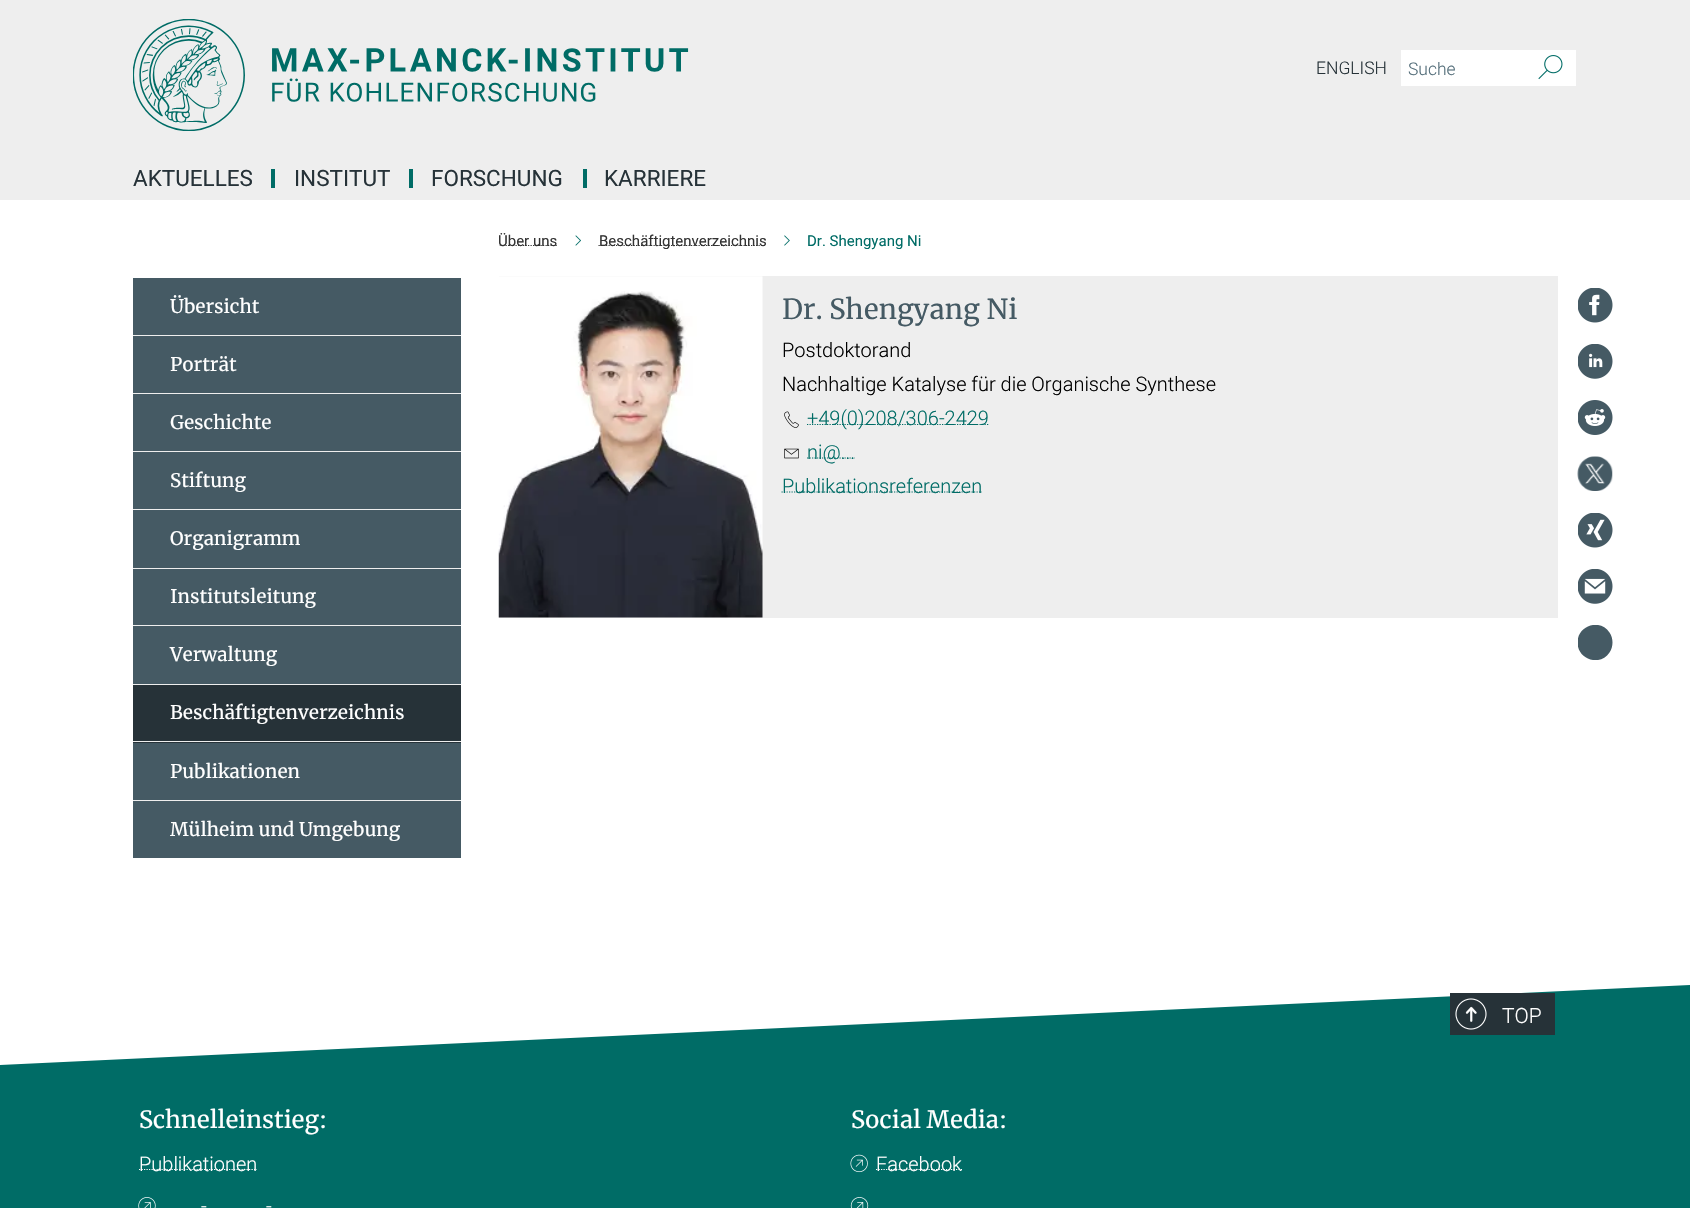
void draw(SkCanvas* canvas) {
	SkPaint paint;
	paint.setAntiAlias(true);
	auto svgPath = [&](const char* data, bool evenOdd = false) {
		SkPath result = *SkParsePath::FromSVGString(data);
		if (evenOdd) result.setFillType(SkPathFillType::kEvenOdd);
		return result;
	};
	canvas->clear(0xffffffff);
	paint.setColor(0xffeeeeee);
	canvas->drawRect(SkRect::MakeXYWH(0, 0, 1690, 200), paint);
	canvas->drawImageRect(SkImages::DeferredFromEncodedData(SkData::MakeFromFileName("img1.png")), SkRect::MakeXYWH(133, 19, 556, 112), SkSamplingOptions());
	SkFont f1(fontMgr->matchFamilyStyle("Roboto", SkFontStyle(300, SkFontStyle::kNormal_Width, SkFontStyle::kUpright_Slant)), 17.5);
	f1.setSubpixel(true);
	paint.setColor(0xff263238);
	canvas->drawString("ENGLISH", 1316, 74, f1, paint);
	paint.setColor(0xffffffff);
	canvas->drawRect(SkRect::MakeXYWH(1401, 50, 175, 36), paint);
	paint.setColor(0xff546e7a);
	canvas->drawString("Suche", 1408, 75, f1, paint);
	canvas->drawImageRect(SkImages::DeferredFromEncodedData(SkData::MakeFromFileName("img2.png")), SkRect::MakeXYWH(1538, 55, 25, 25), SkSamplingOptions());
	paint.setColor(0xff006c66);
	canvas->drawRect(SkRect::MakeXYWH(271, 169, 4, 19), paint);
	SkFont f2(fontMgr->matchFamilyStyle("Roboto", SkFontStyle::Normal()), 22.5);
	f2.setSubpixel(true);
	paint.setColor(0xff263238);
	canvas->drawString("AKTUELLES", 133, 186, f2, paint);
	paint.setColor(0xff006c66);
	canvas->drawRect(SkRect::MakeXYWH(409, 169, 4, 19), paint);
	paint.setColor(0xff263238);
	canvas->drawString("INSTITUT", 294, 186, f2, paint);
	paint.setColor(0xff006c66);
	canvas->drawRect(SkRect::MakeXYWH(583, 169, 4, 19), paint);
	paint.setColor(0xff263238);
	canvas->drawString("FORSCHUNG", 431, 186, f2, paint);
	canvas->drawString("KARRIERE", 604, 186, f2, paint);
	paint.setColor(0xff455a64);
	canvas->drawRect(SkRect::MakeXYWH(133, 278, 328, 57), paint);
	paint.setColor(0xffeeeeee);
	canvas->drawRect(SkRect::MakeXYWH(133, 335, 328, 1), paint);
	SkFont f3(fontMgr->matchFamilyStyle("Merriweather", SkFontStyle::Normal()), 18.75);
	f3.setSubpixel(true);
	paint.setColor(0xffffffff);
	canvas->drawString("Übersicht", 170, 313, f3, paint);
	paint.setColor(0xff455a64);
	canvas->drawRect(SkRect::MakeXYWH(133, 336, 328, 57), paint);
	paint.setColor(0xffeeeeee);
	canvas->drawRect(SkRect::MakeXYWH(133, 393, 328, 1), paint);
	paint.setColor(0xffffffff);
	canvas->drawString("Porträt", 170, 371, f3, paint);
	paint.setColor(0xff455a64);
	canvas->drawRect(SkRect::MakeXYWH(133, 394, 328, 115), paint);
	paint.setColor(0xffeeeeee);
	canvas->drawRect(SkRect::MakeXYWH(133, 451, 328, 1), paint);
	paint.setColor(0xffffffff);
	canvas->drawString("Geschichte", 170, 429, f3, paint);
	paint.setColor(0xffeeeeee);
	canvas->drawRect(SkRect::MakeXYWH(133, 509, 328, 1), paint);
	paint.setColor(0xffffffff);
	canvas->drawString("Stiftung", 170, 487, f3, paint);
	paint.setColor(0xff455a64);
	canvas->drawRect(SkRect::MakeXYWH(133, 510, 328, 58), paint);
	paint.setColor(0xffeeeeee);
	canvas->drawRect(SkRect::MakeXYWH(133, 568, 328, 1), paint);
	paint.setColor(0xffffffff);
	canvas->drawString("Organigramm", 170, 545, f3, paint);
	paint.setColor(0xff455a64);
	canvas->drawRect(SkRect::MakeXYWH(133, 569, 328, 56), paint);
	paint.setColor(0xffeeeeee);
	canvas->drawRect(SkRect::MakeXYWH(133, 625, 328, 1), paint);
	paint.setColor(0xffffffff);
	canvas->drawString("Institutsleitung", 170, 603, f3, paint);
	paint.setColor(0xff455a64);
	canvas->drawRect(SkRect::MakeXYWH(133, 626, 328, 58), paint);
	paint.setColor(0xffeeeeee);
	canvas->drawRect(SkRect::MakeXYWH(133, 684, 328, 1), paint);
	paint.setColor(0xffffffff);
	canvas->drawString("Verwaltung", 170, 661, f3, paint);
	paint.setColor(0xff263238);
	canvas->drawRect(SkRect::MakeXYWH(133, 685, 328, 58), paint);
	paint.setColor(0xffeeeeee);
	canvas->drawRect(SkRect::MakeXYWH(133, 741, 328, 1), paint);
	paint.setColor(0xffffffff);
	canvas->drawString("Beschäftigtenverzeichnis", 170, 719, f3, paint);
	paint.setColor(0xff455a64);
	canvas->drawRect(SkRect::MakeXYWH(133, 743, 328, 57), paint);
	paint.setColor(0xffeeeeee);
	canvas->drawRect(SkRect::MakeXYWH(133, 800, 328, 1), paint);
	paint.setColor(0xffffffff);
	canvas->drawString("Publikationen", 170, 778, f3, paint);
	paint.setColor(0xff455a64);
	canvas->drawRect(SkRect::MakeXYWH(133, 801, 328, 57), paint);
	paint.setColor(0xffffffff);
	canvas->drawString("Mülheim und Umgebung", 170, 836, f3, paint);
	canvas->save();
	canvas->clipRect(SkRect::MakeXYWH(499, 203, 1059, 73));
	paint.setStroke(true);
	paint.setStrokeWidth(1.2);
	paint.setColor(0xff333333);
	paint.setPathEffect(SkDashPathEffect::Make({{1.25f, 1.25f}}, 0));
	canvas->drawPath(svgPath("M498 245.5H557.5"), paint);
	paint.setPathEffect(nullptr);
	canvas->restore();
	SkFont f4(fontMgr->matchFamilyStyle("Roboto", SkFontStyle::Normal()), 15);
	f4.setSubpixel(true);
	paint.setStroke(false);
	canvas->drawString("Über uns", 498, 246, f4, paint);
	canvas->drawImageRect(SkImages::DeferredFromEncodedData(SkData::MakeFromFileName("img3.png")), SkRect::MakeXYWH(575, 235, 6, 11), SkSamplingOptions());
	paint.setStroke(true);
	paint.setPathEffect(SkDashPathEffect::Make({{1.25f, 1.25f}}, 0));
	canvas->drawPath(svgPath("M598.5 245.5H766"), paint);
	paint.setPathEffect(nullptr);
	paint.setStroke(false);
	canvas->drawString("Beschäftigtenverzeichnis", 599, 246, f4, paint);
	canvas->drawImageRect(SkImages::DeferredFromEncodedData(SkData::MakeFromFileName("img4.png")), SkRect::MakeXYWH(784, 235, 6, 11), SkSamplingOptions());
	paint.setColor(0xff006c66);
	canvas->drawString("Dr. Shengyang Ni", 807, 246, f4, paint);
	paint.setColor(0xffeeeeee);
	canvas->drawRect(SkRect::MakeXYWH(499, 276, 1059, 342), paint);
	canvas->drawImageRect(SkImages::DeferredFromEncodedData(SkData::MakeFromFileName("img5.png")), SkRect::MakeXYWH(498, 276, 265, 342), SkSamplingOptions());
	SkFont f5(fontMgr->matchFamilyStyle("Merriweather", SkFontStyle::Normal()), 27.5);
	f5.setSubpixel(true);
	paint.setColor(0xff455a64);
	canvas->drawString("Dr. Shengyang Ni", 782, 319, f5, paint);
	SkFont f6(fontMgr->matchFamilyStyle("Roboto", SkFontStyle(300, SkFontStyle::kNormal_Width, SkFontStyle::kUpright_Slant)), 20);
	f6.setSubpixel(true);
	paint.setColor(0xff000000);
	canvas->drawString("Postdoktorand", 782, 357, f6, paint);
	canvas->drawString("Nachhaltige Katalyse für die Organische Synthese", 782, 391, f6, paint);
	canvas->drawImageRect(SkImages::DeferredFromEncodedData(SkData::MakeFromFileName("img6.png")), SkRect::MakeXYWH(784, 411, 15, 17), SkSamplingOptions());
	paint.setStroke(true);
	paint.setColor(0xff006c66);
	paint.setPathEffect(SkDashPathEffect::Make({{1.25f, 1.25f}}, 0));
	canvas->drawPath(svgPath("M807 424.5H989"), paint);
	paint.setPathEffect(nullptr);
	paint.setStroke(false);
	canvas->drawString("+49(0)208/306-2429", 807, 425, f6, paint);
	canvas->drawImageRect(SkImages::DeferredFromEncodedData(SkData::MakeFromFileName("img7.png")), SkRect::MakeXYWH(784, 448, 15, 11), SkSamplingOptions());
	paint.setStroke(true);
	paint.setPathEffect(SkDashPathEffect::Make({{1.25f, 1.25f}}, 0));
	canvas->drawPath(svgPath("M807 458H855"), paint);
	paint.setPathEffect(nullptr);
	paint.setStroke(false);
	canvas->drawString("ni@...", 807, 459, f6, paint);
	paint.setStroke(true);
	paint.setPathEffect(SkDashPathEffect::Make({{1.25f, 1.25f}}, 0));
	canvas->drawPath(svgPath("M781.5 492H982"), paint);
	paint.setPathEffect(nullptr);
	paint.setStroke(false);
	canvas->drawString("Publikationsreferenzen", 782, 493, f6, paint);
	canvas->drawImageRect(SkImages::DeferredFromEncodedData(SkData::MakeFromFileName("img8.png")), SkRect::MakeXYWH(1578, 288, 35, 35), SkSamplingOptions());
	canvas->drawImageRect(SkImages::DeferredFromEncodedData(SkData::MakeFromFileName("img9.png")), SkRect::MakeXYWH(1578, 344, 35, 35), SkSamplingOptions());
	canvas->drawImageRect(SkImages::DeferredFromEncodedData(SkData::MakeFromFileName("img10.png")), SkRect::MakeXYWH(1578, 400, 35, 35), SkSamplingOptions());
	canvas->drawImageRect(SkImages::DeferredFromEncodedData(SkData::MakeFromFileName("img11.png")), SkRect::MakeXYWH(1577, 456, 36, 35), SkSamplingOptions());
	canvas->drawImageRect(SkImages::DeferredFromEncodedData(SkData::MakeFromFileName("img12.png")), SkRect::MakeXYWH(1578, 513, 35, 35), SkSamplingOptions());
	canvas->drawImageRect(SkImages::DeferredFromEncodedData(SkData::MakeFromFileName("img13.png")), SkRect::MakeXYWH(1578, 569, 35, 35), SkSamplingOptions());
	canvas->save();
	canvas->clipRect(SkRect::MakeXYWH(1578, 625, 35, 35));
	paint.setColor(0xff455a64);
	canvas->drawPath(svgPath("M1612.5 642.5C1612.5 646 1611.5 649.5 1609.5 652.5C1600 667 1577.5 659.5 1577.5 642.5C1577.5 625.5 1600 618 1609.5 632.5C1611.5 635.5 1612.5 639 1612.5 642.5Z"), paint);
	canvas->restore();
	paint.setColor(0xff006c66);
	canvas->drawRect(SkRect::MakeXYWH(0, 1073, 1690, 135), paint);
	canvas->drawPath(svgPath("M0 1065L1690 985V1073H0"), paint);
	paint.setColor(0xff263238);
	canvas->drawRect(SkRect::MakeXYWH(1450, 993, 105, 42), paint);
	canvas->drawImageRect(SkImages::DeferredFromEncodedData(SkData::MakeFromFileName("img14.png")), SkRect::MakeXYWH(1465, 1006, 12, 16), SkSamplingOptions());
	canvas->drawImageRect(SkImages::DeferredFromEncodedData(SkData::MakeFromFileName("img15.png")), SkRect::MakeXYWH(1455, 998, 32, 32), SkSamplingOptions());
	SkFont f7(fontMgr->matchFamilyStyle("Roboto", SkFontStyle(300, SkFontStyle::kNormal_Width, SkFontStyle::kUpright_Slant)), 21);
	f7.setSubpixel(true);
	paint.setColor(0xffffffff);
	canvas->drawString("TOP", 1502, 1023, f7, paint);
	SkFont f8(fontMgr->matchFamilyStyle("Merriweather", SkFontStyle::Normal()), 23.75);
	f8.setSubpixel(true);
	canvas->drawString("Schnelleinstieg:", 139, 1128, f8, paint);
	paint.setStroke(true);
	paint.setPathEffect(SkDashPathEffect::Make({{1.25f, 1.25f}}, 0));
	canvas->drawPath(svgPath("M139 1169.5H257"), paint);
	paint.setPathEffect(nullptr);
	paint.setStroke(false);
	canvas->drawString("Publikationen", 139, 1171, f6, paint);
	canvas->drawImageRect(SkImages::DeferredFromEncodedData(SkData::MakeFromFileName("img16.png")), SkRect::MakeXYWH(138, 1197, 18, 11), SkSamplingOptions());
	canvas->drawString("-", 201, 1213, f6, paint);
	canvas->drawString("-", 266, 1213, f6, paint);
	canvas->drawString("Social Media:", 851, 1128, f8, paint);
	canvas->drawImageRect(SkImages::DeferredFromEncodedData(SkData::MakeFromFileName("img17.png")), SkRect::MakeXYWH(850, 1154, 18, 19), SkSamplingOptions());
	paint.setStroke(true);
	paint.setPathEffect(SkDashPathEffect::Make({{1.25f, 1.25f}}, 0));
	canvas->drawPath(svgPath("M876 1169.5H962"), paint);
	paint.setPathEffect(nullptr);
	paint.setStroke(false);
	canvas->drawString("Facebook", 876, 1171, f6, paint);
	canvas->drawImageRect(SkImages::DeferredFromEncodedData(SkData::MakeFromFileName("img18.png")), SkRect::MakeXYWH(850, 1197, 19, 11), SkSamplingOptions());
}
